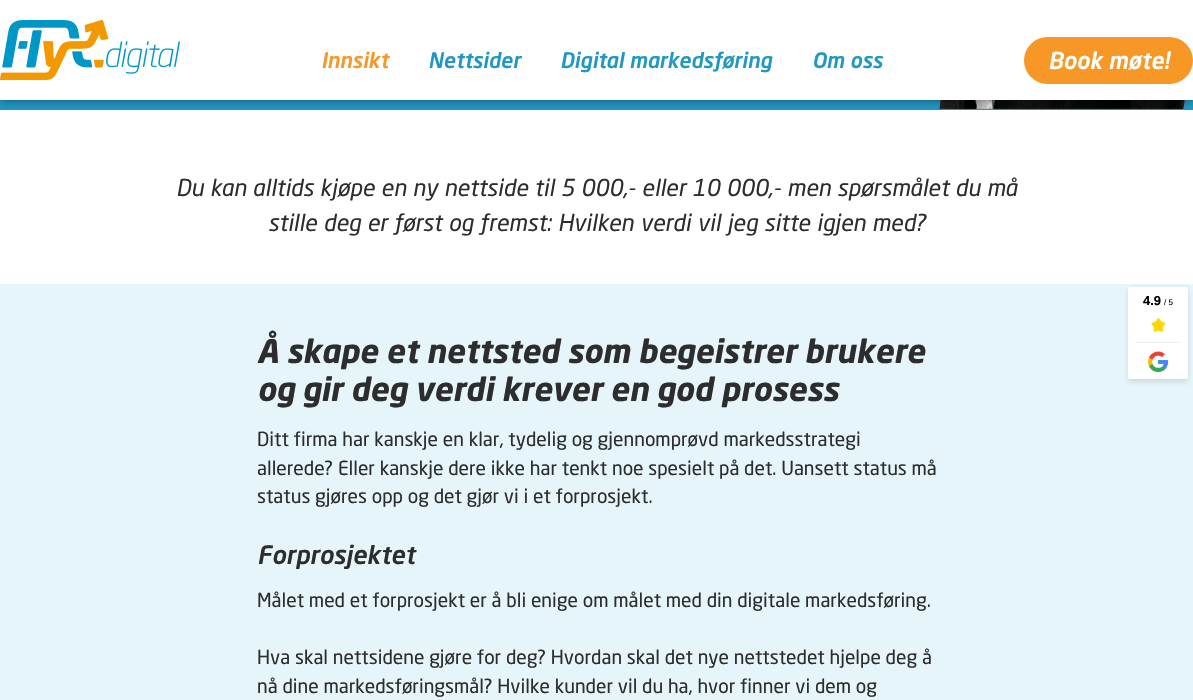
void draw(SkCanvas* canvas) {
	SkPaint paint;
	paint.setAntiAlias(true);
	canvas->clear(0xffffffff);
	paint.setColor(0xff2198c4);
	canvas->drawRect(SkRect::MakeXYWH(0, 100, 1193, 10), paint);
	canvas->drawImageRect(SkImages::DeferredFromEncodedData(SkData::MakeFromFileName("img2.png")), SkRect::MakeXYWH(939, 100, 247, 10), SkSamplingOptions());
	paint.setColor(0x80000000);
	paint.setMaskFilter(SkMaskFilter::MakeBlur(kNormal_SkBlurStyle, 5));
	canvas->drawRect(SkRect::MakeXYWH(0, 0, 1193, 100), paint);
	paint.setMaskFilter(nullptr);
	paint.setColor(0xffffffff);
	canvas->drawRect(SkRect::MakeXYWH(0, 0, 1193, 100), paint);
	canvas->drawImageRect(SkImages::DeferredFromEncodedData(SkData::MakeFromFileName("img1.png")), SkRect::MakeXYWH(0, 20, 180, 60), SkSamplingOptions());
	SkFont f1(fontMgr->matchFamilyStyle("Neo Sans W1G", SkFontStyle(500, SkFontStyle::kNormal_Width, SkFontStyle::kItalic_Slant)), 21.1);
	f1.setSubpixel(true);
	paint.setColor(0xfff79826);
	canvas->drawString("Innsikt", 321, 68, f1, paint);
	paint.setColor(0xff2198c4);
	canvas->drawString("Nettsider", 428, 68, f1, paint);
	canvas->drawString("Digital markedsføring", 560, 68, f1, paint);
	canvas->drawString("Om oss", 812, 68, f1, paint);
	paint.setColor(0xfff79826);
	canvas->drawRoundRect(SkRect::MakeXYWH(1024, 37, 169, 47), 23.5, 23.5, paint);
	SkFont f2(fontMgr->matchFamilyStyle("Neo Sans W1G", SkFontStyle(500, SkFontStyle::kNormal_Width, SkFontStyle::kItalic_Slant)), 23.05);
	f2.setSubpixel(true);
	paint.setColor(0xffffffff);
	canvas->drawString("Book møte!", 1048, 69, f2, paint);
	SkFont f3(fontMgr->matchFamilyStyle("Neo Sans W1G", SkFontStyle::Italic()), 23.05);
	f3.setSubpixel(true);
	paint.setColor(0xff2d2d2d);
	canvas->drawString("Du kan alltids kjøpe en ny nettside til 5 000,- eller 10 000,- men spørsmålet du må", 176, 196, f3, paint);
	canvas->drawString("stille deg er først og fremst: Hvilken verdi vil jeg sitte igjen med?", 268, 231, f3, paint);
	paint.setColor(0xffe5f5f9);
	canvas->drawRect(SkRect::MakeXYWH(0, 284, 1193, 416), paint);
	SkFont f4(fontMgr->matchFamilyStyle("Neo Sans W1G", SkFontStyle::BoldItalic()), 32);
	f4.setSubpixel(true);
	paint.setColor(0xff2d2d2d);
	canvas->drawString("Å skape et nettsted som begeistrer brukere", 257, 363, f4, paint);
	canvas->drawString("og gir deg verdi krever en god prosess", 257, 401, f4, paint);
	SkFont f5(fontMgr->matchFamilyStyle("Neo Sans W1G", SkFontStyle::Normal()), 19.2);
	f5.setSubpixel(true);
	canvas->drawString("Ditt firma har kanskje en klar, tydelig og gjennomprøvd markedsstrategi", 257, 446, f5, paint);
	canvas->drawString("allerede? Eller kanskje dere ikke har tenkt noe spesielt på det. Uansett status må", 257, 475, f5, paint);
	canvas->drawString("status gjøres opp og det gjør vi i et forprosjekt.", 257, 503, f5, paint);
	SkFont f6(fontMgr->matchFamilyStyle("Neo Sans W1G", SkFontStyle(500, SkFontStyle::kNormal_Width, SkFontStyle::kItalic_Slant)), 25);
	f6.setSubpixel(true);
	canvas->drawString("Forprosjektet", 257, 564, f6, paint);
	canvas->drawString("Målet med et forprosjekt er å bli enige om målet med din digitale markedsføring.", 257, 607, f5, paint);
	canvas->drawString("Hva skal nettsidene gjøre for deg? Hvordan skal det nye nettstedet hjelpe deg å", 257, 664, f5, paint);
	canvas->drawString("nå dine markedsføringsmål? Hvilke kunder vil du ha, hvor finner vi dem og", 257, 693, f5, paint);
	paint.setColor(0x29484848);
	paint.setMaskFilter(SkMaskFilter::MakeBlur(kNormal_SkBlurStyle, 2.5));
	canvas->drawRoundRect(SkRect::MakeXYWH(1128, 289, 60, 93), 2.5, 2.5, paint);
	paint.setMaskFilter(nullptr);
	paint.setColor(0xffffffff);
	canvas->drawRoundRect(SkRect::MakeXYWH(1128, 287, 60, 92), 2.5, 2.5, paint);
	SkFont f7(fontMgr->matchFamilyStyle("Liberation Sans", SkFontStyle::Bold()), 13);
	f7.setSubpixel(true);
	paint.setColor(0xff000000);
	canvas->drawString("4.9", 1143, 305, f7, paint);
	SkFont f8(fontMgr->matchFamilyStyle("Liberation Sans", SkFontStyle::Normal()), 8);
	f8.setSubpixel(true);
	canvas->drawString("/ 5", 1164, 305, f8, paint);
	canvas->drawImageRect(SkImages::DeferredFromEncodedData(SkData::MakeFromFileName("img3.png")), SkRect::MakeXYWH(1151, 318, 15, 15), SkSamplingOptions());
	paint.setColor(0xffeeeeee);
	canvas->drawRect(SkRect::MakeXYWH(1135, 342, 46, 1), paint);
	canvas->drawImageRect(SkImages::DeferredFromEncodedData(SkData::MakeFromFileName("img4.png")), SkRect::MakeXYWH(1148, 351, 21, 21), SkSamplingOptions());
}
